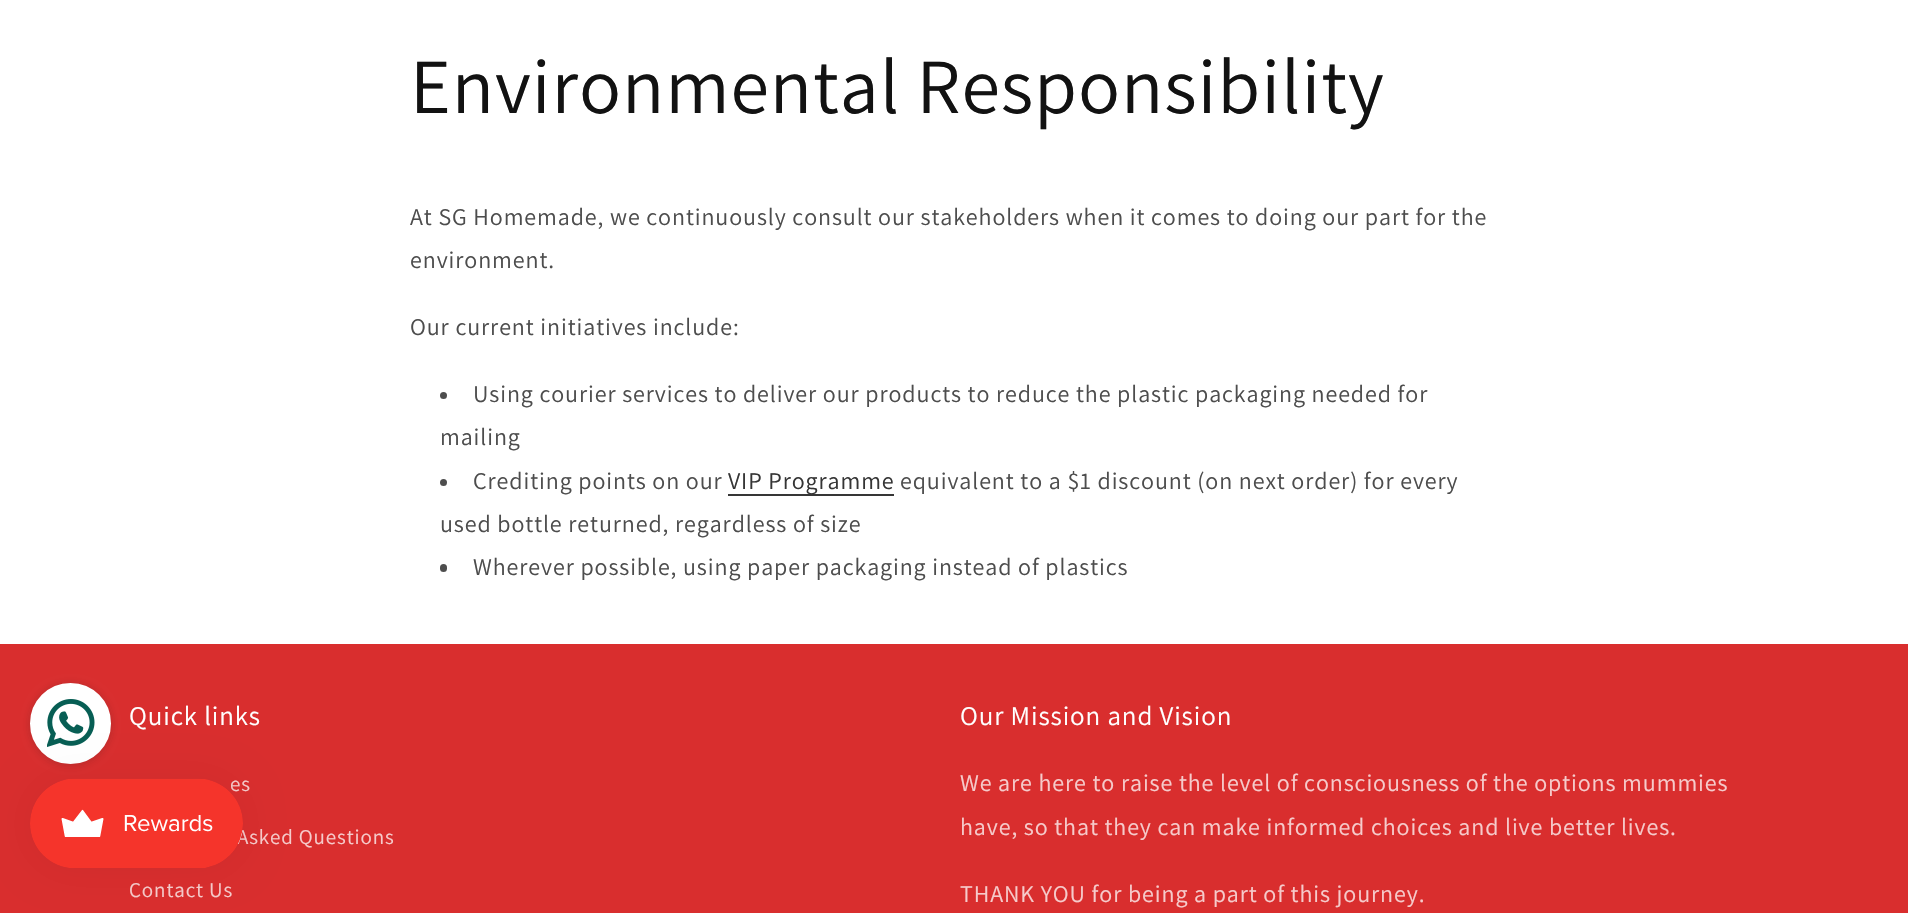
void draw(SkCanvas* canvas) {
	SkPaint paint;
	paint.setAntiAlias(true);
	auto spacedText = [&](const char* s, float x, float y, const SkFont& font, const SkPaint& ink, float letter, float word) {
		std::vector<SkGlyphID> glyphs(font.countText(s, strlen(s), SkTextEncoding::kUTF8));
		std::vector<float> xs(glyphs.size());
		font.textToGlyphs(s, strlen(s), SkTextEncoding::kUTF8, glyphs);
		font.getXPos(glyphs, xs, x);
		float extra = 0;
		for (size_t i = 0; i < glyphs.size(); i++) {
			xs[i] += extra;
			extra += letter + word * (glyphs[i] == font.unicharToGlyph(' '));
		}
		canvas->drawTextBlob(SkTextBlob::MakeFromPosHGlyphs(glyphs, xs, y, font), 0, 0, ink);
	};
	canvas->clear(0xffffffff);
	SkFont f1(fontMgr->matchFamilyStyle("Assistant", SkFontStyle::Normal()), 78);
	f1.setSubpixel(true);
	paint.setColor(0xff121212);
	spacedText("Environmental Responsibility", 410, 113, f1, paint, 0.9, 0);
	SkFont f2(fontMgr->matchFamilyStyle("Assistant", SkFontStyle::Normal()), 24);
	f2.setSubpixel(true);
	paint.setColor(0xff4d4d4d);
	spacedText("At SG Homemade, we continuously consult our stakeholders when it comes to doing our part for the", 410, 225, f2, paint, 0.9, 0);
	spacedText("environment.", 410, 268, f2, paint, 0.9, 0);
	spacedText("Our current initiatives include:", 410, 335, f2, paint, 0.9, 0);
	canvas->drawCircle(443.5, 395.5, 3.5, paint);
	spacedText("Using courier services to deliver our products to reduce the plastic packaging needed for", 473, 402, f2, paint, 0.9, 0);
	spacedText("mailing", 440, 445, f2, paint, 0.9, 0);
	canvas->drawCircle(443.5, 482.5, 3.5, paint);
	spacedText("Crediting points on our", 473, 489, f2, paint, 0.9, 0);
	paint.setColor(0xff363636);
	canvas->drawRect(SkRect::MakeXYWH(728, 494, 166, 2), paint);
	paint.setColor(0xff353535);
	spacedText("VIP Programme", 728, 489, f2, paint, 0.9, 0);
	paint.setColor(0xff4d4d4d);
	spacedText("equivalent to a $1 discount (on next order) for every", 900, 489, f2, paint, 0.9, 0);
	spacedText("used bottle returned, regardless of size", 440, 532, f2, paint, 0.9, 0);
	canvas->drawRoundRect(SkRect::MakeXYWH(440, 564, 7, 8), 3.5, 3.5, paint);
	spacedText("Wherever possible, using paper packaging instead of plastics", 473, 575, f2, paint, 0.9, 0);
	paint.setColor(0xffd92e2e);
	canvas->drawRect(SkRect::MakeXYWH(0, 644, 1908, 269), paint);
	paint.setColor(0x331b1b1b);
	paint.setMaskFilter(SkMaskFilter::MakeBlur(kNormal_SkBlurStyle, 4.5));
	canvas->drawRoundRect(SkRect::MakeXYWH(30, 684, 81, 81), 40.5, 40.5, paint);
	paint.setMaskFilter(nullptr);
	paint.setColor(0xffffffff);
	canvas->drawCircle(70.5, 723.5, 39.5, paint);
	paint.setStroke(true);
	paint.setStrokeWidth(2);
	canvas->drawCircle(70.5, 723.5, 39.5, paint);
	canvas->drawImageRect(SkImages::DeferredFromEncodedData(SkData::MakeFromFileName("img1.png")), SkRect::MakeXYWH(47, 699, 48, 48), SkSamplingOptions());
	SkFont f3(fontMgr->matchFamilyStyle("Assistant", SkFontStyle::Normal()), 27);
	f3.setSubpixel(true);
	paint.setStroke(false);
	spacedText("Quick links", 129, 725, f3, paint, 0.9, 0);
	SkFont f4(fontMgr->matchFamilyStyle("Assistant", SkFontStyle::Normal()), 21);
	f4.setSubpixel(true);
	paint.setColor(0xfff6cbcb);
	spacedText("es", 230, 791, f4, paint, 0.9, 0);
	spacedText("Asked Questions", 237, 844, f4, paint, 0.9, 0);
	spacedText("Contact Us", 129, 897, f4, paint, 0.9, 0);
	paint.setColor(0xffffffff);
	spacedText("Our Mission and Vision", 960, 725, f3, paint, 0.9, 0);
	paint.setColor(0xfff6cbcb);
	spacedText("We are here to raise the level of consciousness of the options mummies", 960, 791, f2, paint, 0.9, 0);
	spacedText("have, so that they can make informed choices and live better lives.", 960, 835, f2, paint, 0.9, 0);
	spacedText("THANK YOU for being a part of this journey.", 960, 902, f2, paint, 0.9, 0);
	paint.setColor(0x0d000000);
	paint.setMaskFilter(SkMaskFilter::MakeBlur(kNormal_SkBlurStyle, 19));
	canvas->drawRoundRect(SkRect::MakeXYWH(30, 779, 213, 90), 45, 45, paint);
	paint.setMaskFilter(nullptr);
	canvas->drawImageRect(SkImages::DeferredFromEncodedData(SkData::MakeFromFileName("img2.png")), SkRect::MakeXYWH(30, 778, 213, 90), SkSamplingOptions());
}
